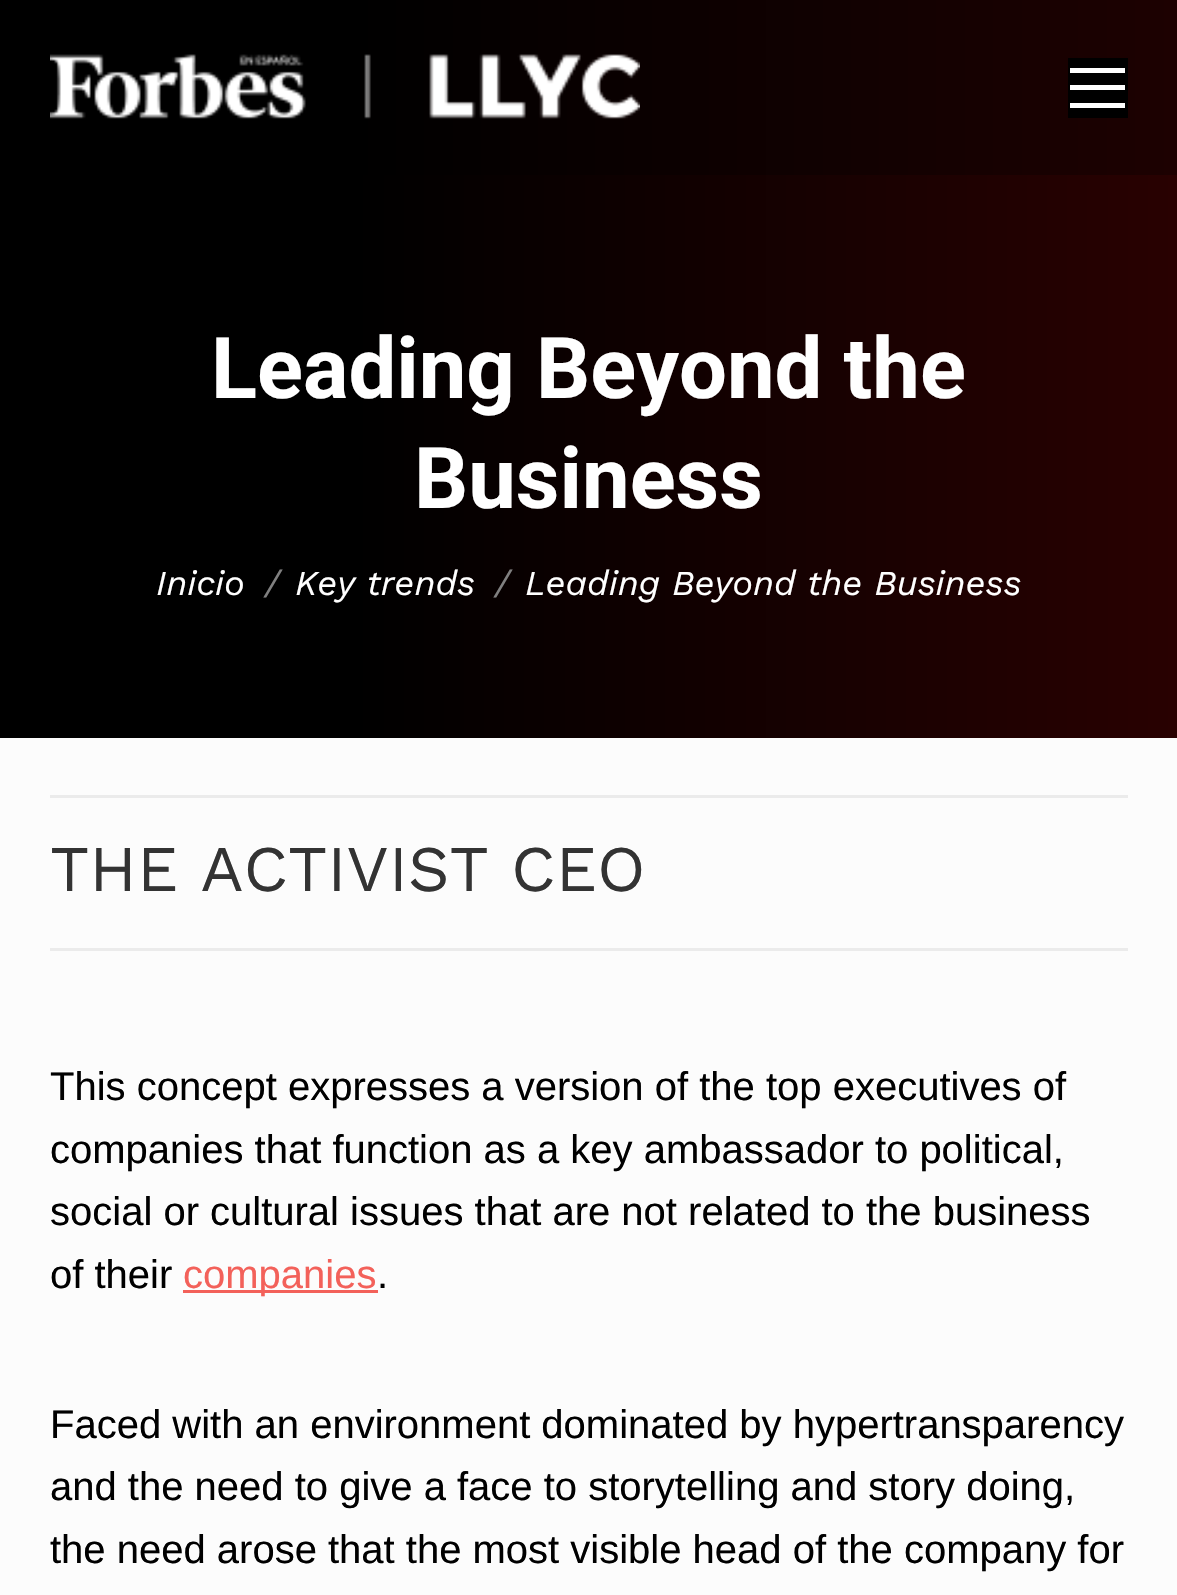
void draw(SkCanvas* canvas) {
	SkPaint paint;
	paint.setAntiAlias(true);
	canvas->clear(0xfffcfcfc);
	{
		const SkColor colors[] = {0xff000000, 0xff1d0101};
		const float stops[] = {0.3, 1};
		const SkPoint ends[] = {{0, 369}, {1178, 369}};
		paint.setShader(SkGradientShader::MakeLinear(ends, colors, stops, 2, SkTileMode::kClamp));
		paint.setAlpha(255);
	}
	canvas->drawRect(SkRect::MakeXYWH(0, 0, 1177, 175), paint);
	canvas->drawImageRect(SkImages::DeferredFromEncodedData(SkData::MakeFromFileName("img1.png")), SkRect::MakeXYWH(50, 54, 590, 65), SkSamplingOptions());
	paint.setShader(nullptr);
	paint.setColor(0xff000000);
	canvas->drawRect(SkRect::MakeXYWH(1068, 58, 60, 60), paint);
	paint.setColor(0xffffffff);
	canvas->drawRect(SkRect::MakeXYWH(1070, 68, 55, 5), paint);
	canvas->drawRect(SkRect::MakeXYWH(1070, 85, 55, 5), paint);
	canvas->drawRect(SkRect::MakeXYWH(1070, 103, 55, 5), paint);
	{
		const SkColor colors[] = {0xff000000, 0xff290101};
		const float stops[] = {0.3, 1};
		const SkPoint ends[] = {{0, 369}, {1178, 369}};
		paint.setShader(SkGradientShader::MakeLinear(ends, colors, stops, 2, SkTileMode::kClamp));
		paint.setAlpha(255);
	}
	canvas->drawRect(SkRect::MakeXYWH(0, 175, 1177, 563), paint);
	SkFont f1(fontMgr->matchFamilyStyle("Roboto", SkFontStyle::Bold()), 85);
	f1.setSubpixel(true);
	paint.setShader(nullptr);
	paint.setColor(0xffffffff);
	canvas->drawString("Leading Beyond the", 211, 398, f1, paint);
	canvas->drawString("Business", 414, 508, f1, paint);
	SkFont f2(fontMgr->matchFamilyStyle("Work Sans", SkFontStyle::Italic()), 35);
	f2.setSubpixel(true);
	canvas->drawString("Inicio", 156, 595, f2, paint);
	paint.setColor(0xff808080);
	canvas->drawString("/", 265, 595, f2, paint);
	paint.setColor(0xffffffff);
	canvas->drawString("Key trends", 295, 595, f2, paint);
	paint.setColor(0xff808080);
	canvas->drawString("/", 495, 595, f2, paint);
	paint.setColor(0xffffffff);
	canvas->drawString("Leading Beyond the Business", 525, 595, f2, paint);
	paint.setColor(0xffebebeb);
	canvas->drawRect(SkRect::MakeXYWH(50, 795, 1078, 3), paint);
	SkFont f3(fontMgr->matchFamilyStyle("Work Sans", SkFontStyle::Normal()), 65);
	f3.setSubpixel(true);
	paint.setColor(0xff333333);
	canvas->drawString("THE ACTIVIST CEO", 50, 891, f3, paint);
	paint.setColor(0xffebebeb);
	canvas->drawRect(SkRect::MakeXYWH(50, 948, 1078, 3), paint);
	SkFont f4(fontMgr->matchFamilyStyle("Liberation Sans", SkFontStyle::Normal()), 40);
	f4.setSubpixel(true);
	paint.setColor(0xff000000);
	canvas->drawString("This concept expresses a version of the top executives of", 50, 1100, f4, paint);
	canvas->drawString("companies that function as a key ambassador to political,", 50, 1163, f4, paint);
	canvas->drawString("social or cultural issues that are not related to the business", 50, 1225, f4, paint);
	canvas->drawString("of their", 50, 1288, f4, paint);
	paint.setColor(0xfff3615a);
	canvas->drawRect(SkRect::MakeXYWH(183, 1290, 195, 3), paint);
	canvas->drawString("companies", 183, 1288, f4, paint);
	paint.setColor(0xff000000);
	canvas->drawString(".", 377, 1288, f4, paint);
	canvas->drawString("Faced with an environment dominated by hypertransparency", 50, 1438, f4, paint);
	canvas->drawString("and the need to give a face to storytelling and story doing,", 50, 1500, f4, paint);
	canvas->drawString("the need arose that the most visible head of the company for", 50, 1563, f4, paint);
}
